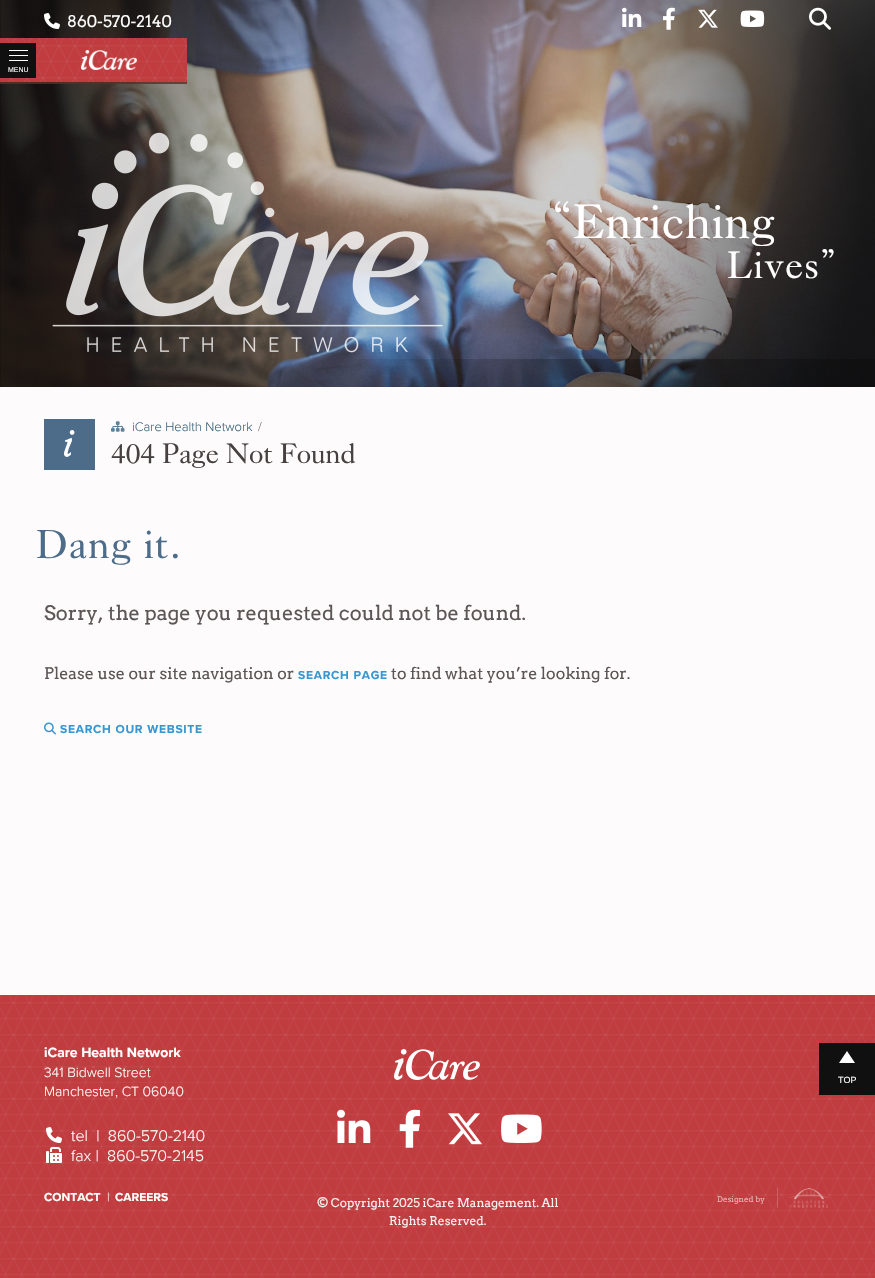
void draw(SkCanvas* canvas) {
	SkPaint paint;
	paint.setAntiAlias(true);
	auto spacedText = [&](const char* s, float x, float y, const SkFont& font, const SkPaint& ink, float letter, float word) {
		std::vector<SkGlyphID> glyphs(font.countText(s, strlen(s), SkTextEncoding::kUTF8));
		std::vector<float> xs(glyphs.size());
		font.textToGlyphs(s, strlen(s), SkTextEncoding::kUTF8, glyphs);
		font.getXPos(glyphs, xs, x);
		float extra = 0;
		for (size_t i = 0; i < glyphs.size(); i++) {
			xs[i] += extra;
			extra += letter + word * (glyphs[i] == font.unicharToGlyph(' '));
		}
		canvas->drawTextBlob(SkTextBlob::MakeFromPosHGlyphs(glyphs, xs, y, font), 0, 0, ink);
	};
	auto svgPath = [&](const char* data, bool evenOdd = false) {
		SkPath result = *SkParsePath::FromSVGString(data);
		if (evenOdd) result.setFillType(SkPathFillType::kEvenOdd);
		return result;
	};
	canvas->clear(0xfffdfbfb);
	canvas->drawImageRect(SkImages::DeferredFromEncodedData(SkData::MakeFromFileName("img1.png")), SkRect::MakeXYWH(0, 0, 875, 387), SkSamplingOptions());
	paint.setColor(0xcf5e2b2b);
	canvas->drawRect(SkRect::MakeXYWH(0, 82, 187, 2), paint);
	paint.setColor(0xffc03c3f);
	canvas->drawRect(SkRect::MakeXYWH(0, 38, 187, 44), paint);
	canvas->drawImageRect(SkImages::DeferredFromEncodedData(SkData::MakeFromFileName("img2.png")), SkRect::MakeXYWH(6, 38, 181, 44), SkSamplingOptions());
	paint.setColor(0xff101010);
	canvas->drawRect(SkRect::MakeXYWH(0, 43, 36, 35), paint);
	paint.setColor(0xffffffff);
	canvas->drawRect(SkRect::MakeXYWH(9, 50, 19, 1), paint);
	canvas->drawRect(SkRect::MakeXYWH(9, 55, 19, 1), paint);
	canvas->drawRect(SkRect::MakeXYWH(9, 60, 19, 1), paint);
	SkFont f1(fontMgr->matchFamilyStyle("Liberation Sans", SkFontStyle::Normal()), 7);
	f1.setSubpixel(true);
	canvas->drawString("MENU", 8, 72, f1, paint);
	canvas->drawImageRect(SkImages::DeferredFromEncodedData(SkData::MakeFromFileName("img3.png")), SkRect::MakeXYWH(81, 50, 56, 20), SkSamplingOptions());
	canvas->drawImageRect(SkImages::DeferredFromEncodedData(SkData::MakeFromFileName("img4.png")), SkRect::MakeXYWH(44, 13, 16, 16), SkSamplingOptions());
	SkFont f2(fontMgr->matchFamilyStyle("Arvo", SkFontStyle::Normal()), 16);
	f2.setSubpixel(true);
	canvas->drawString("860-570-2140", 67, 27, f2, paint);
	canvas->drawImageRect(SkImages::DeferredFromEncodedData(SkData::MakeFromFileName("img5.png")), SkRect::MakeXYWH(622, 7, 20, 20), SkSamplingOptions());
	canvas->drawImageRect(SkImages::DeferredFromEncodedData(SkData::MakeFromFileName("img6.png")), SkRect::MakeXYWH(663, 7, 12, 23), SkSamplingOptions());
	canvas->drawImageRect(SkImages::DeferredFromEncodedData(SkData::MakeFromFileName("img7.png")), SkRect::MakeXYWH(698, 9, 20, 19), SkSamplingOptions());
	canvas->drawImageRect(SkImages::DeferredFromEncodedData(SkData::MakeFromFileName("img8.png")), SkRect::MakeXYWH(740, 10, 25, 17), SkSamplingOptions());
	canvas->drawImageRect(SkImages::DeferredFromEncodedData(SkData::MakeFromFileName("img9.png")), SkRect::MakeXYWH(809, 7, 22, 23), SkSamplingOptions());
	canvas->drawImageRect(SkImages::DeferredFromEncodedData(SkData::MakeFromFileName("img10.png")), SkRect::MakeXYWH(52, 132, 391, 221), SkSamplingOptions());
	SkFont f3(fontMgr->matchFamilyStyle("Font", SkFontStyle::Normal()), 48);
	f3.setSubpixel(true);
	spacedText("“Enriching", 552, 238, f3, paint, 1, 0);
	SkFont f4(fontMgr->matchFamilyStyle("Font", SkFontStyle::Normal()), 38);
	f4.setSubpixel(true);
	spacedText("Lives”", 727, 278, f4, paint, 1.5, 0);
	paint.setColor(0xff4c6c89);
	canvas->drawRect(SkRect::MakeXYWH(44, 419, 51, 51), paint);
	canvas->drawImageRect(SkImages::DeferredFromEncodedData(SkData::MakeFromFileName("img11.png")), SkRect::MakeXYWH(64, 430, 11, 27), SkSamplingOptions());
	canvas->drawImageRect(SkImages::DeferredFromEncodedData(SkData::MakeFromFileName("img12.png")), SkRect::MakeXYWH(111, 421, 14, 11), SkSamplingOptions());
	SkFont f5(fontMgr->matchFamilyStyle("Proxima Nova", SkFontStyle(300, SkFontStyle::kNormal_Width, SkFontStyle::kUpright_Slant)), 13);
	f5.setSubpixel(true);
	paint.setColor(0xff3c657e);
	canvas->drawString("iCare Health Network", 132, 431, f5, paint);
	paint.setColor(0xff7c7272);
	canvas->drawString("/", 258, 431, f5, paint);
	SkFont f6(fontMgr->matchFamilyStyle("Font", SkFontStyle::Normal()), 28);
	f6.setSubpixel(true);
	paint.setColor(0xff464040);
	canvas->drawString("404 Page Not Found", 111, 463, f6, paint);
	SkFont f7(fontMgr->matchFamilyStyle("Font", SkFontStyle::Normal()), 40);
	f7.setSubpixel(true);
	paint.setColor(0xff4c6c89);
	spacedText("Dang it.", 36, 558, f7, paint, 1.5, 0);
	SkFont f8(fontMgr->matchFamilyStyle("Arvo", SkFontStyle::Normal()), 20);
	f8.setSubpixel(true);
	paint.setColor(0xff5d5656);
	canvas->drawString("Sorry, the page you requested could not be found.", 44, 620, f8, paint);
	canvas->drawString("Please use our site navigation or", 44, 679, f2, paint);
	SkFont f9(fontMgr->matchFamilyStyle("Proxima Nova", SkFontStyle::Bold()), 12);
	f9.setSubpixel(true);
	paint.setColor(0xff3697d2);
	spacedText("SEARCH PAGE", 298, 679, f9, paint, 0.75, 0);
	paint.setColor(0xff5d5656);
	canvas->drawString("to find what you’re looking for.", 391, 679, f2, paint);
	canvas->drawImageRect(SkImages::DeferredFromEncodedData(SkData::MakeFromFileName("img13.png")), SkRect::MakeXYWH(44, 722, 12, 13), SkSamplingOptions());
	paint.setColor(0xff3697d2);
	spacedText("SEARCH OUR WEBSITE", 60, 733, f9, paint, 0.75, 0);
	paint.setColor(0xffc03c3f);
	canvas->drawRect(SkRect::MakeXYWH(0, 995, 875, 283), paint);
	canvas->drawImageRect(SkImages::DeferredFromEncodedData(SkData::MakeFromFileName("img14.png")), SkRect::MakeXYWH(0, 995, 875, 283), SkSamplingOptions());
	SkFont f10(fontMgr->matchFamilyStyle("Proxima Nova", SkFontStyle::Bold()), 14);
	f10.setSubpixel(true);
	paint.setColor(0xffffffff);
	canvas->drawString("iCare Health Network", 44, 1057, f10, paint);
	SkFont f11(fontMgr->matchFamilyStyle("Proxima Nova", SkFontStyle(300, SkFontStyle::kNormal_Width, SkFontStyle::kUpright_Slant)), 14);
	f11.setSubpixel(true);
	canvas->drawString("341 Bidwell Street", 44, 1077, f11, paint);
	canvas->drawString("Manchester, CT 06040", 44, 1096, f11, paint);
	canvas->drawImageRect(SkImages::DeferredFromEncodedData(SkData::MakeFromFileName("img15.png")), SkRect::MakeXYWH(46, 1127, 16, 16), SkSamplingOptions());
	SkFont f12(fontMgr->matchFamilyStyle("Proxima Nova", SkFontStyle(300, SkFontStyle::kNormal_Width, SkFontStyle::kUpright_Slant)), 16);
	f12.setSubpixel(true);
	canvas->drawString("tel  |  860-570-2140", 71, 1141, f12, paint);
	canvas->drawImageRect(SkImages::DeferredFromEncodedData(SkData::MakeFromFileName("img16.png")), SkRect::MakeXYWH(46, 1147, 16, 16), SkSamplingOptions());
	canvas->drawString("fax |  860-570-2145", 71, 1161, f12, paint);
	canvas->drawString("CONTACT", 44, 1201, f9, paint);
	SkFont f13(fontMgr->matchFamilyStyle("Proxima Nova", SkFontStyle(300, SkFontStyle::kNormal_Width, SkFontStyle::kUpright_Slant)), 12);
	f13.setSubpixel(true);
	canvas->drawString("|", 107, 1201, f13, paint);
	canvas->drawString("CAREERS", 115, 1201, f9, paint);
	canvas->drawImageRect(SkImages::DeferredFromEncodedData(SkData::MakeFromFileName("img17.png")), SkRect::MakeXYWH(394, 1049, 86, 31), SkSamplingOptions());
	canvas->drawImageRect(SkImages::DeferredFromEncodedData(SkData::MakeFromFileName("img18.png")), SkRect::MakeXYWH(337, 1109, 34, 34), SkSamplingOptions());
	canvas->drawImageRect(SkImages::DeferredFromEncodedData(SkData::MakeFromFileName("img19.png")), SkRect::MakeXYWH(399, 1109, 22, 39), SkSamplingOptions());
	canvas->drawImageRect(SkImages::DeferredFromEncodedData(SkData::MakeFromFileName("img20.png")), SkRect::MakeXYWH(448, 1113, 34, 32), SkSamplingOptions());
	canvas->drawImageRect(SkImages::DeferredFromEncodedData(SkData::MakeFromFileName("img21.png")), SkRect::MakeXYWH(501, 1114, 41, 29), SkSamplingOptions());
	SkFont f14(fontMgr->matchFamilyStyle("Arvo", SkFontStyle::Normal()), 12);
	f14.setSubpixel(true);
	paint.setColor(0xfff6f0f0);
	canvas->drawString("© Copyright 2025 iCare Management. All", 317, 1207, f14, paint);
	canvas->drawString("Rights Reserved.", 389, 1225, f14, paint);
	paint.setColor(0x2effffff);
	canvas->drawRect(SkRect::MakeXYWH(777, 1188, 1, 20), paint);
	SkFont f15(fontMgr->matchFamilyStyle("Arvo", SkFontStyle::Normal()), 8);
	f15.setSubpixel(true);
	paint.setColor(0xffe6b2b3);
	canvas->drawString("Designed by", 717, 1202, f15, paint);
	canvas->drawImageRect(SkImages::DeferredFromEncodedData(SkData::MakeFromFileName("img22.png")), SkRect::MakeXYWH(788, 1188, 42, 20), SkSamplingOptions());
	paint.setColor(0xff101010);
	canvas->drawRect(SkRect::MakeXYWH(819, 1043, 56, 52), paint);
	paint.setColor(0xffffffff);
	canvas->drawPath(svgPath("M855 1063H839L847 1051Z"), paint);
	SkFont f16(fontMgr->matchFamilyStyle("Liberation Sans", SkFontStyle::Normal()), 9);
	f16.setSubpixel(true);
	canvas->drawString("TOP", 838, 1083, f16, paint);
}
